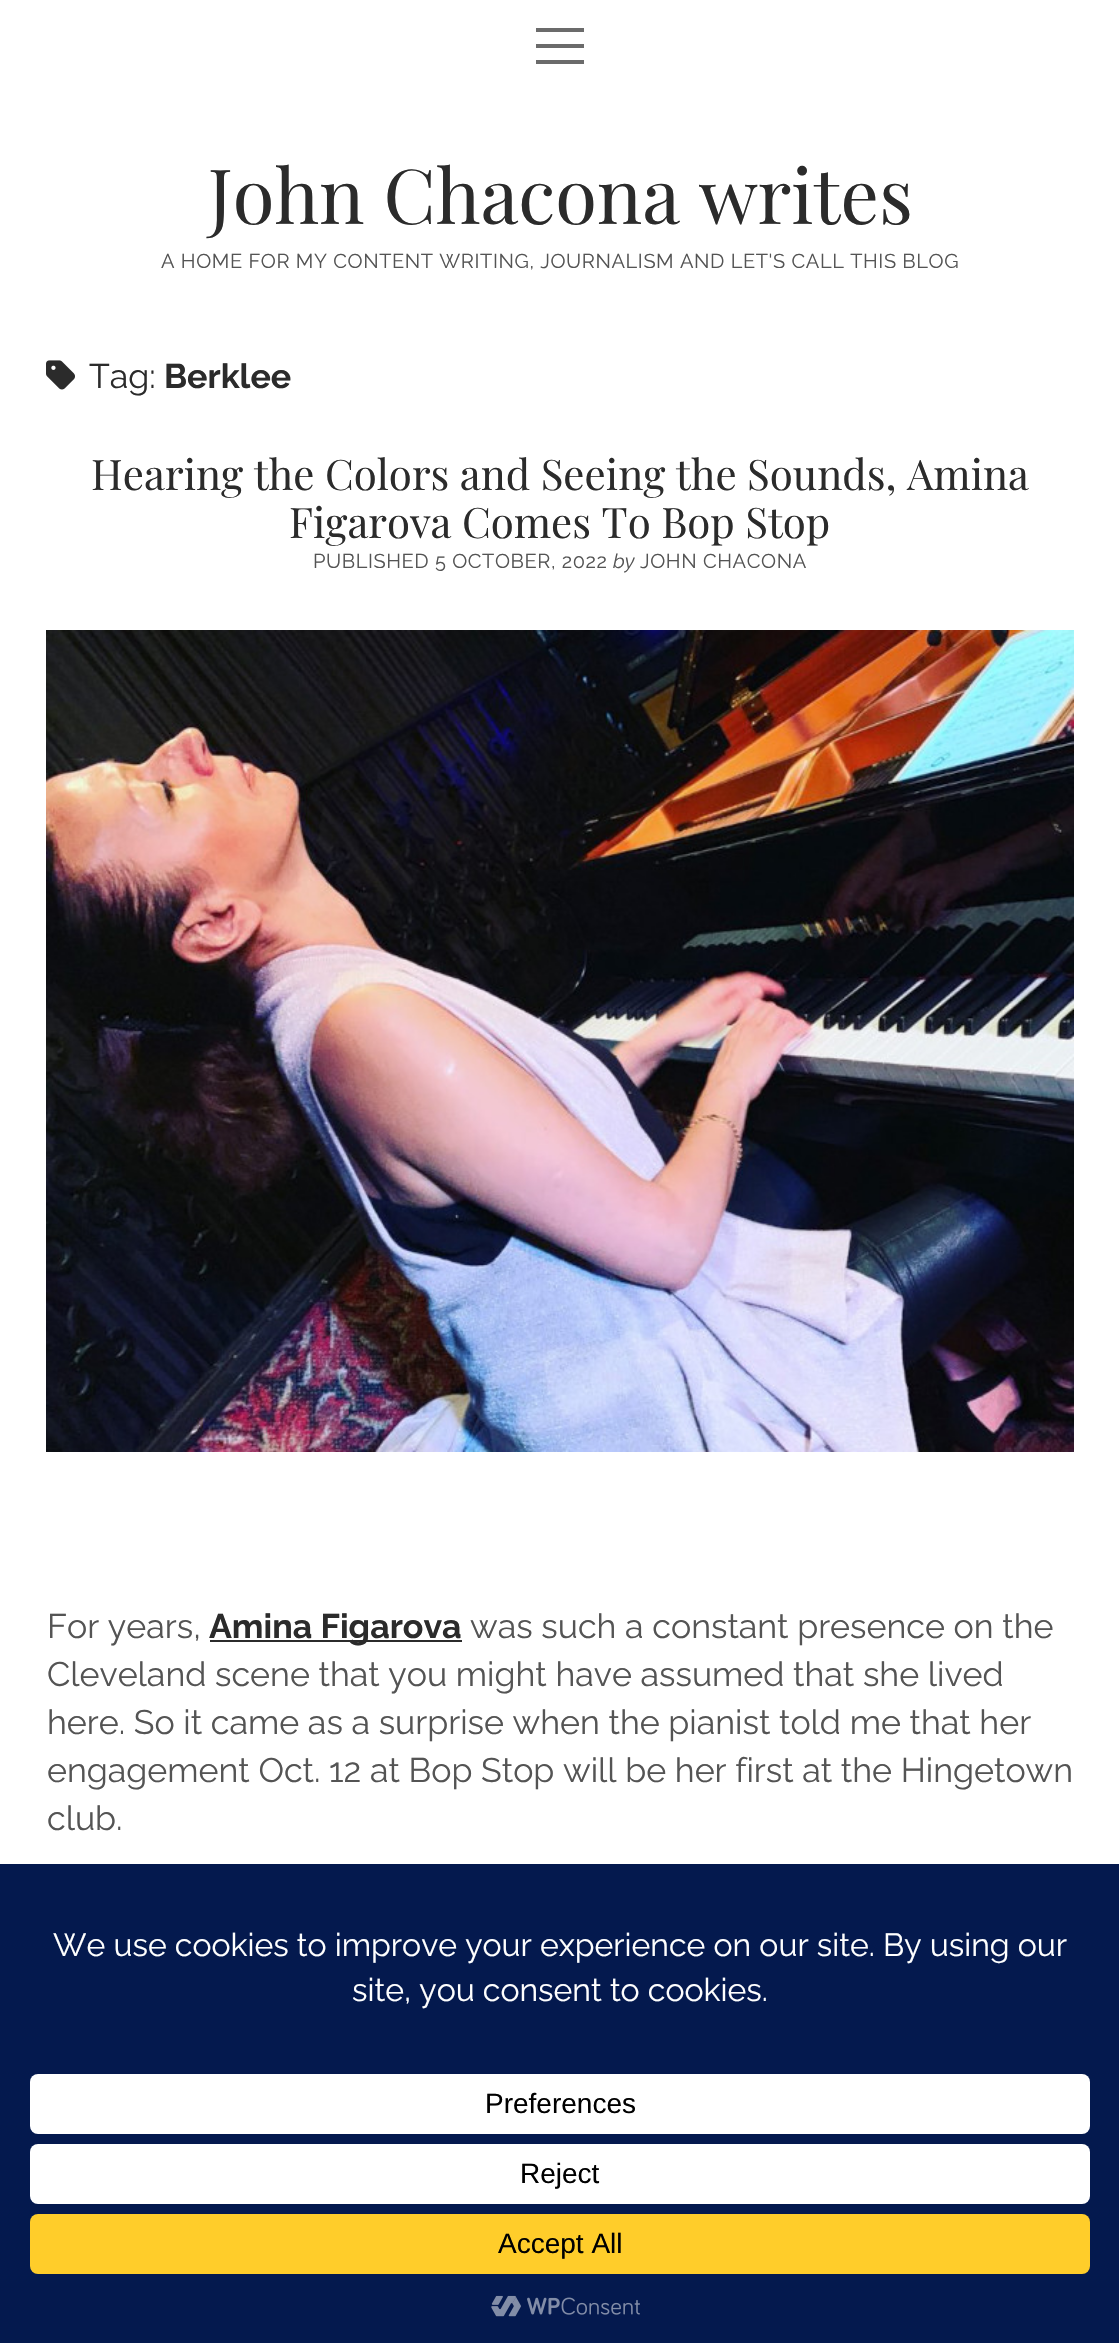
void draw(SkCanvas* canvas) {
	SkPaint paint;
	paint.setAntiAlias(true);
	auto spacedText = [&](const char* s, float x, float y, const SkFont& font, const SkPaint& ink, float letter, float word) {
		std::vector<SkGlyphID> glyphs(font.countText(s, strlen(s), SkTextEncoding::kUTF8));
		std::vector<float> xs(glyphs.size());
		font.textToGlyphs(s, strlen(s), SkTextEncoding::kUTF8, glyphs);
		font.getXPos(glyphs, xs, x);
		float extra = 0;
		for (size_t i = 0; i < glyphs.size(); i++) {
			xs[i] += extra;
			extra += letter + word * (glyphs[i] == font.unicharToGlyph(' '));
		}
		canvas->drawTextBlob(SkTextBlob::MakeFromPosHGlyphs(glyphs, xs, y, font), 0, 0, ink);
	};
	canvas->clear(0xffffffff);
	paint.setColor(0xff6b6b6b);
	canvas->drawRect(SkRect::MakeXYWH(536, 28, 48, 4), paint);
	canvas->drawRect(SkRect::MakeXYWH(536, 44, 48, 4), paint);
	canvas->drawRect(SkRect::MakeXYWH(536, 60, 48, 4), paint);
	SkFont f1(fontMgr->matchFamilyStyle("Playfair Display", SkFontStyle::Normal()), 76);
	f1.setSubpixel(true);
	paint.setColor(0xff2b2b2b);
	canvas->drawString("John Chacona writes", 208, 224, f1, paint);
	SkFont f2(fontMgr->matchFamilyStyle("Raleway", SkFontStyle::Normal()), 20);
	f2.setSubpixel(true);
	paint.setColor(0xff545454);
	spacedText("A HOME FOR MY CONTENT WRITING, JOURNALISM AND LET'S CALL THIS BLOG", 161, 268, f2, paint, 0.6, 0);
	canvas->drawImageRect(SkImages::DeferredFromEncodedData(SkData::MakeFromFileName("img1.png")), SkRect::MakeXYWH(46, 360, 29, 30), SkSamplingOptions());
	SkFont f3(fontMgr->matchFamilyStyle("Raleway", SkFontStyle::Normal()), 34);
	f3.setSubpixel(true);
	paint.setColor(0xff2b2b2b);
	canvas->drawString("Tag:", 89, 388, f3, paint);
	SkFont f4(fontMgr->matchFamilyStyle("Raleway", SkFontStyle::Bold()), 34);
	f4.setSubpixel(true);
	canvas->drawString("Berklee", 164, 388, f4, paint);
	SkFont f5(fontMgr->matchFamilyStyle("Playfair Display", SkFontStyle::Normal()), 42);
	f5.setSubpixel(true);
	canvas->drawString("Hearing the Colors and Seeing the Sounds, Amina", 91, 490, f5, paint);
	canvas->drawString("Figarova Comes To Bop Stop", 289, 538, f5, paint);
	paint.setColor(0xff545454);
	spacedText("PUBLISHED 5 OCTOBER, 2022", 313, 568, f2, paint, 0.6, 0);
	SkFont f6(fontMgr->matchFamilyStyle("Raleway", SkFontStyle(100, SkFontStyle::kNormal_Width, SkFontStyle::kItalic_Slant)), 20);
	f6.setSubpixel(true);
	canvas->drawString("by", 613, 568, f6, paint);
	spacedText("JOHN CHACONA", 640, 568, f2, paint, 0.6, 0);
	canvas->drawImageRect(SkImages::DeferredFromEncodedData(SkData::MakeFromFileName("img2.png")), SkRect::MakeXYWH(46, 630, 1028, 822), SkSamplingOptions());
	canvas->drawString("For years,", 47, 1638, f3, paint);
	paint.setColor(0xff2b2b2b);
	canvas->drawRect(SkRect::MakeXYWH(210, 1640, 252, 2), paint);
	canvas->drawString("Amina Figarova", 209, 1638, f4, paint);
	paint.setColor(0xff545454);
	canvas->drawString("was such a constant presence on the", 470, 1638, f3, paint);
	canvas->drawString("Cleveland scene that you might have assumed that she lived", 47, 1686, f3, paint);
	canvas->drawString("here. So it came as a surprise when the pianist told me that her", 47, 1734, f3, paint);
	canvas->drawString("engagement Oct. 12 at Bop Stop will be her first at the Hingetown", 47, 1782, f3, paint);
	canvas->drawString("club.", 47, 1830, f3, paint);
	paint.setColor(0xff04194e);
	canvas->drawRect(SkRect::MakeXYWH(0, 1864, 1119, 479), paint);
	SkFont f7(fontMgr->matchFamilyStyle("Raleway", SkFontStyle::Normal()), 32);
	f7.setSubpixel(true);
	paint.setColor(0xffffffff);
	canvas->drawString("We use cookies to improve your experience on our site. By using our", 53, 1956, f7, paint);
	canvas->drawString("site, you consent to cookies.", 352, 2001, f7, paint);
	canvas->drawRoundRect(SkRect::MakeXYWH(30, 2074, 1060, 60), 8, 8, paint);
	SkFont f8(fontMgr->matchFamilyStyle("Liberation Sans", SkFontStyle::Normal()), 28);
	f8.setSubpixel(true);
	paint.setColor(0xff000000);
	canvas->drawString("Preferences", 485, 2113, f8, paint);
	paint.setColor(0xffffffff);
	canvas->drawRoundRect(SkRect::MakeXYWH(30, 2144, 1060, 60), 8, 8, paint);
	paint.setColor(0xff000000);
	canvas->drawString("Reject", 520, 2183, f8, paint);
	paint.setColor(0xffffcd2a);
	canvas->drawRoundRect(SkRect::MakeXYWH(30, 2214, 1060, 60), 8, 8, paint);
	paint.setColor(0xff000000);
	canvas->drawString("Accept All", 498, 2253, f8, paint);
	canvas->drawImageRect(SkImages::DeferredFromEncodedData(SkData::MakeFromFileName("img3.png")), SkRect::MakeXYWH(491, 2295, 149, 22), SkSamplingOptions());
}
